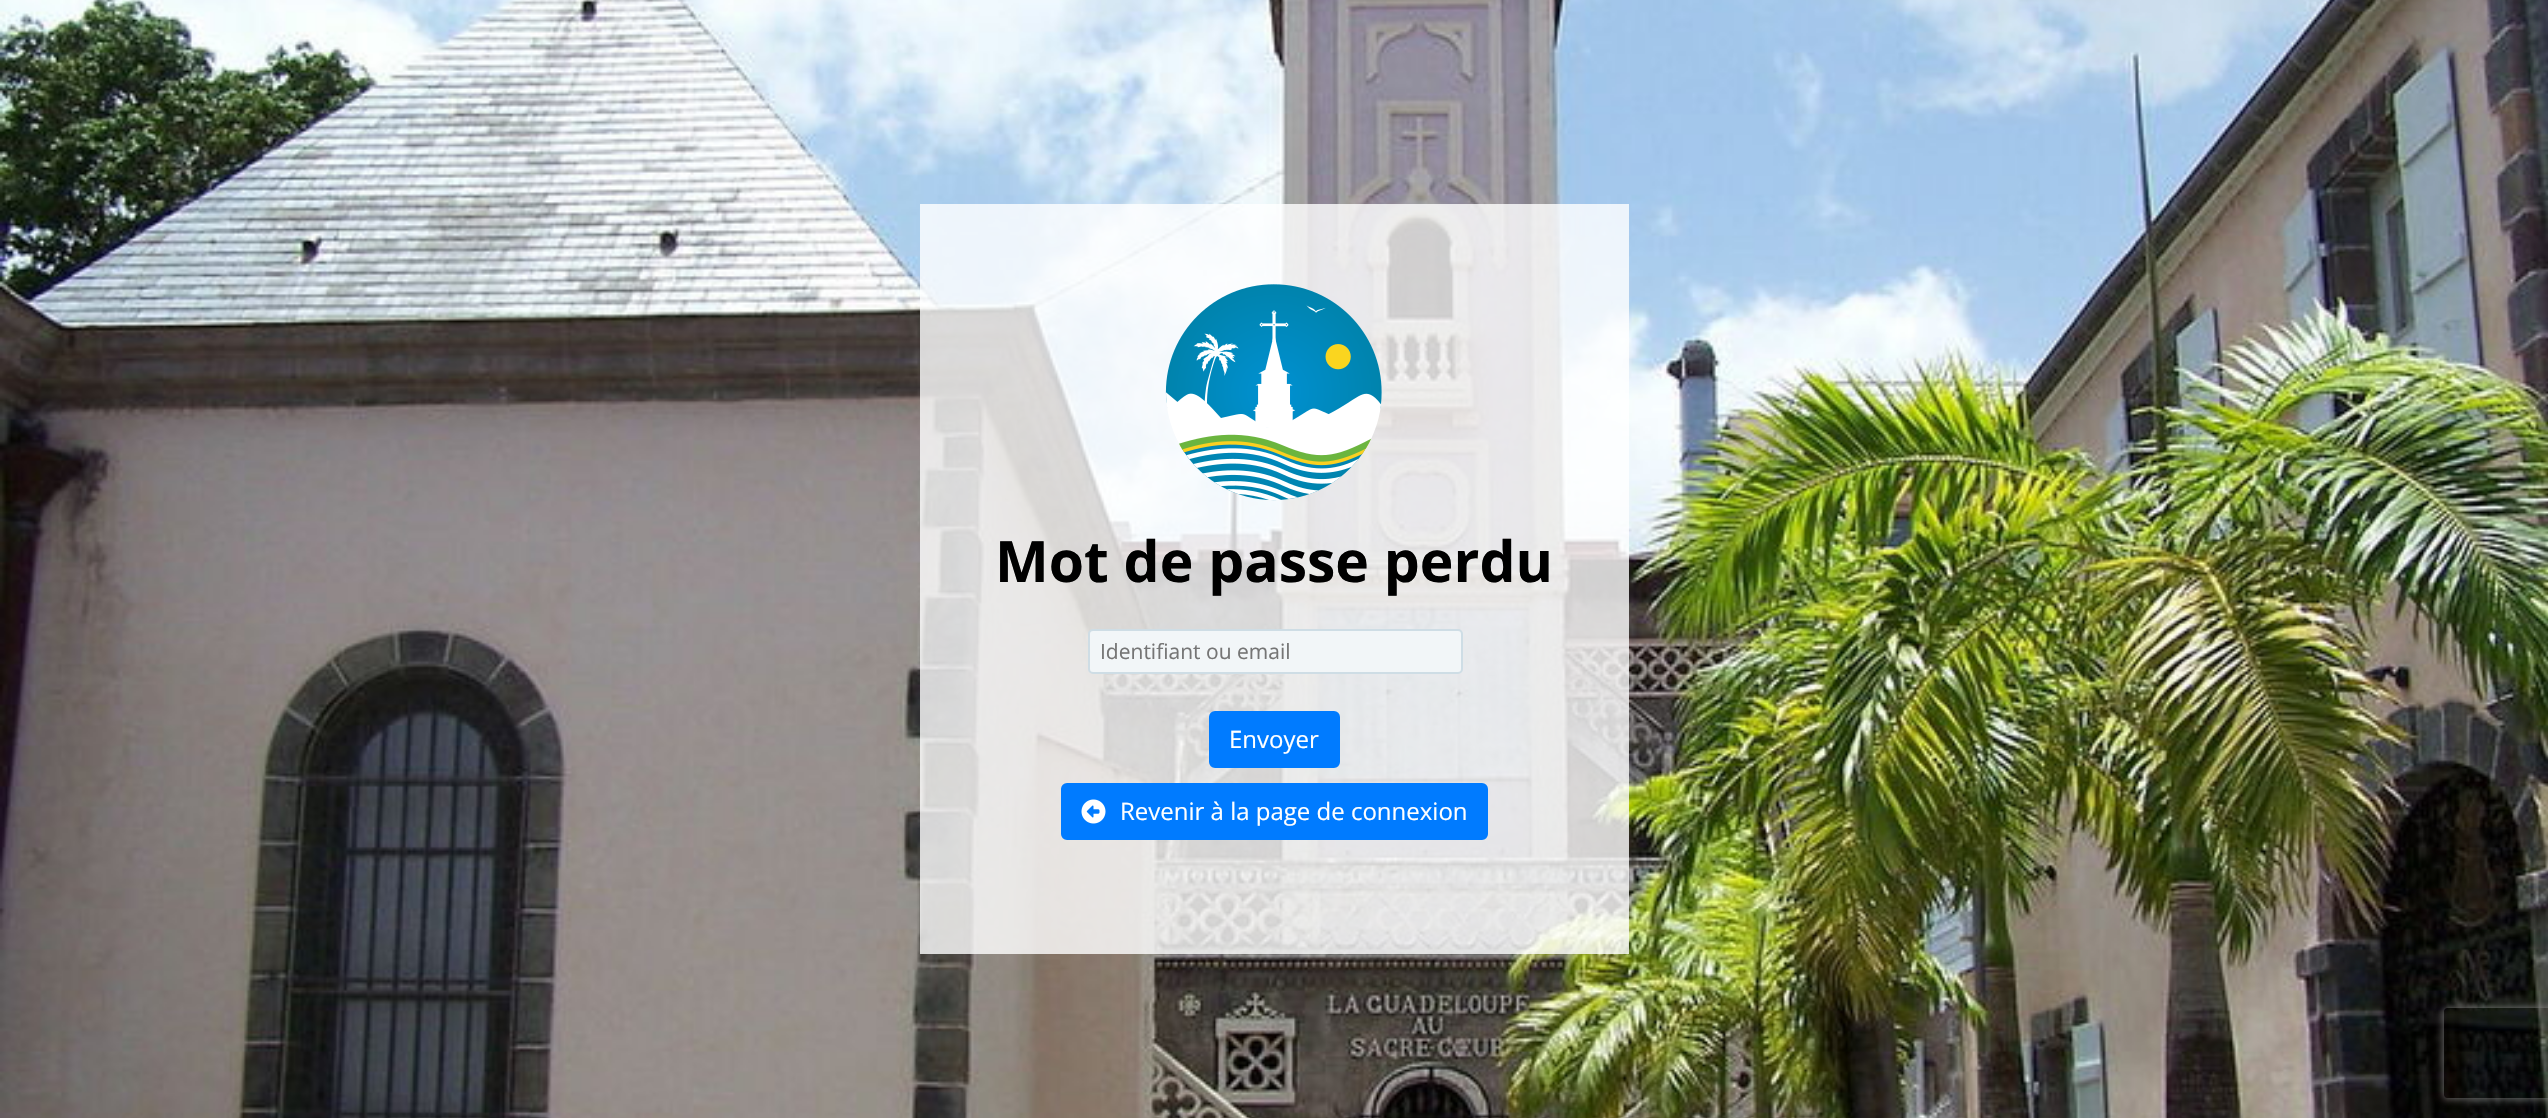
void draw(SkCanvas* canvas) {
	SkPaint paint;
	paint.setAntiAlias(true);
	auto svgPath = [&](const char* data, bool evenOdd = false) {
		SkPath result = *SkParsePath::FromSVGString(data);
		if (evenOdd) result.setFillType(SkPathFillType::kEvenOdd);
		return result;
	};
	canvas->clear(0xffffffff);
	canvas->drawImageRect(SkImages::DeferredFromEncodedData(SkData::MakeFromFileName("img1.png")), SkRect::MakeXYWH(0, 0, 2548, 1118), SkSamplingOptions());
	paint.setColor(0xccffffff);
	canvas->drawRect(SkRect::MakeXYWH(920, 204, 709, 750), paint);
	canvas->drawImageRect(SkImages::DeferredFromEncodedData(SkData::MakeFromFileName("img2.png")), SkRect::MakeXYWH(1165, 284, 217, 217), SkSamplingOptions());
	SkFont f1(fontMgr->matchFamilyStyle("Open Sans", SkFontStyle::Bold()), 57);
	f1.setSubpixel(true);
	paint.setColor(0xff000000);
	canvas->drawString("Mot de passe perdu", 995, 582, f1, paint);
	paint.setColor(0xfff2f6f8);
	canvas->drawRoundRect(SkRect::MakeXYWH(1089, 630, 373, 43), 4, 4, paint);
	paint.setStroke(true);
	paint.setStrokeWidth(2);
	paint.setColor(0xffcedde5);
	canvas->drawRoundRect(SkRect::MakeXYWH(1089, 630, 373, 43), 4, 4, paint);
	SkFont f2(fontMgr->matchFamilyStyle("Open Sans", SkFontStyle::Normal()), 21);
	f2.setSubpixel(true);
	paint.setStroke(false);
	paint.setColor(0xff757575);
	canvas->drawString("Identifiant ou email", 1100, 659, f2, paint);
	paint.setColor(0xff007bff);
	canvas->drawRoundRect(SkRect::MakeXYWH(1210.5, 712.5, 128, 54), 4.5, 4.5, paint);
	paint.setStroke(true);
	paint.setStrokeWidth(3);
	canvas->drawRoundRect(SkRect::MakeXYWH(1210.5, 712.5, 128, 54), 4.5, 4.5, paint);
	SkFont f3(fontMgr->matchFamilyStyle("Open Sans", SkFontStyle::Normal()), 24);
	f3.setSubpixel(true);
	paint.setStroke(false);
	paint.setColor(0xffffffff);
	canvas->drawString("Envoyer", 1229, 748, f3, paint);
	paint.setColor(0xff007bff);
	canvas->drawRoundRect(SkRect::MakeXYWH(1062.5, 784.5, 424, 54), 4.5, 4.5, paint);
	paint.setStroke(true);
	canvas->drawRoundRect(SkRect::MakeXYWH(1062.5, 784.5, 424, 54), 4.5, 4.5, paint);
	canvas->drawImageRect(SkImages::DeferredFromEncodedData(SkData::MakeFromFileName("img3.png")), SkRect::MakeXYWH(1081, 799, 25, 25), SkSamplingOptions());
	paint.setStroke(false);
	paint.setColor(0xffffffff);
	canvas->drawString("Revenir à la page de connexion", 1120, 820, f3, paint);
	canvas->save();
	canvas->clipPath(svgPath("M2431 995H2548V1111H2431ZM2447 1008H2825C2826.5 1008 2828 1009.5 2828 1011V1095C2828 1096.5 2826.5 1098 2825 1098H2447C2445.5 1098 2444 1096.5 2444 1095V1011C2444 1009.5 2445.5 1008 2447 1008Z", true), true);
	paint.setColor(0xff808080);
	paint.setMaskFilter(SkMaskFilter::MakeBlur(kNormal_SkBlurStyle, 4));
	canvas->drawRoundRect(SkRect::MakeXYWH(2444, 1008, 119, 90), 3, 3, paint);
	paint.setMaskFilter(nullptr);
	canvas->restore();
}
